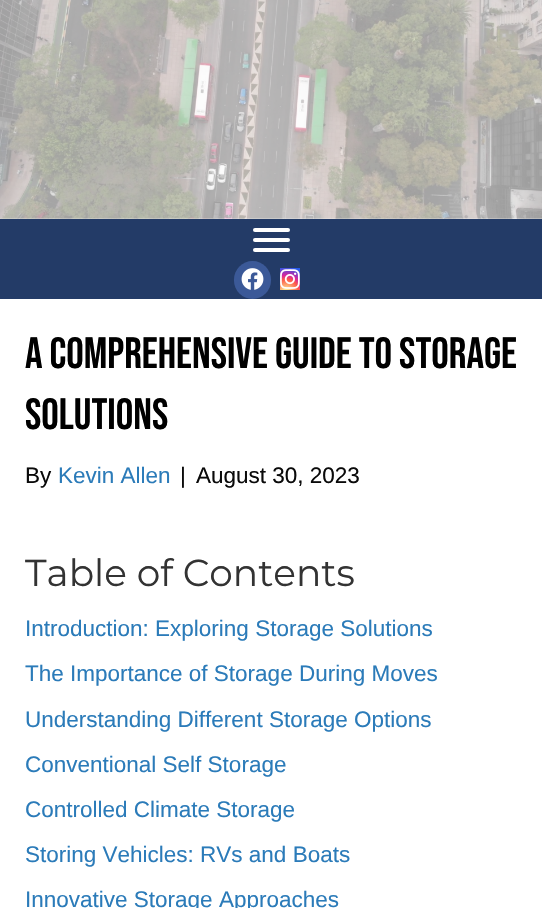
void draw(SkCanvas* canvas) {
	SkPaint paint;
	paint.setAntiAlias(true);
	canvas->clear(0xffffffff);
	canvas->drawImageRect(SkImages::DeferredFromEncodedData(SkData::MakeFromFileName("img1.png")), SkRect::MakeXYWH(0, 0, 542, 219), SkSamplingOptions());
	paint.setColor(0xff233b67);
	canvas->drawRect(SkRect::MakeXYWH(0, 219, 542, 80), paint);
	paint.setColor(0xffffffff);
	canvas->drawRoundRect(SkRect::MakeXYWH(253, 238, 37, 4), 2, 2, paint);
	canvas->drawRoundRect(SkRect::MakeXYWH(253, 228, 37, 4), 2, 2, paint);
	canvas->drawRoundRect(SkRect::MakeXYWH(253, 248, 37, 4), 2, 2, paint);
	paint.setColor(0xff3b5998);
	canvas->drawRoundRect(SkRect::MakeXYWH(234, 261, 37, 38), 18.5, 18.5, paint);
	canvas->drawImageRect(SkImages::DeferredFromEncodedData(SkData::MakeFromFileName("img2.png")), SkRect::MakeXYWH(241, 268, 23, 22), SkSamplingOptions());
	{
		const SkColor colors[] = {0xfffdf497, 0xfffdf497, 0xfffd5949, 0xffd6249f, 0xff285aeb};
		const float stops[] = {0, 0.05, 0.45, 0.6, 0.9};
		paint.setShader(SkGradientShader::MakeRadial({286, 292}, 28, colors, stops, 5, SkTileMode::kClamp));
		paint.setAlpha(255);
	}
	canvas->drawRect(SkRect::MakeXYWH(280, 268, 20, 22), paint);
	canvas->drawImageRect(SkImages::DeferredFromEncodedData(SkData::MakeFromFileName("img3.png")), SkRect::MakeXYWH(280, 269, 20, 20), SkSamplingOptions());
	SkFont f1(fontMgr->matchFamilyStyle("Bebas Neue", SkFontStyle::Normal()), 43.75);
	f1.setSubpixel(true);
	paint.setShader(nullptr);
	paint.setColor(0xff000000);
	canvas->drawString("A Comprehensive Guide to Storage", 25, 368, f1, paint);
	canvas->drawString("Solutions", 25, 429, f1, paint);
	SkFont f2(fontMgr->matchFamilyStyle("Liberation Sans", SkFontStyle::Normal()), 22.5);
	f2.setSubpixel(true);
	paint.setColor(0xff0a0a0a);
	canvas->drawString("By", 25, 483, f2, paint);
	paint.setColor(0xff2b7bb9);
	canvas->drawString("Kevin Allen", 58, 483, f2, paint);
	paint.setColor(0xff0a0a0a);
	canvas->drawString("|", 180, 483, f2, paint);
	canvas->drawString("August 30, 2023", 196, 483, f2, paint);
	SkFont f3(fontMgr->matchFamilyStyle("Montserrat", SkFontStyle(100, SkFontStyle::kNormal_Width, SkFontStyle::kUpright_Slant)), 37.5);
	f3.setSubpixel(true);
	paint.setColor(0xff333333);
	canvas->drawString("Table of Contents", 25, 586, f3, paint);
	paint.setColor(0xff2b7bb9);
	canvas->drawString("Introduction: Exploring Storage Solutions", 25, 636, f2, paint);
	canvas->drawString("The Importance of Storage During Moves", 25, 681, f2, paint);
	canvas->drawString("Understanding Different Storage Options", 25, 727, f2, paint);
	canvas->drawString("Conventional Self Storage", 25, 772, f2, paint);
	canvas->drawString("Controlled Climate Storage", 25, 817, f2, paint);
	canvas->drawString("Storing Vehicles: RVs and Boats", 25, 862, f2, paint);
	canvas->drawString("Innovative Storage Approaches", 25, 907, f2, paint);
}
